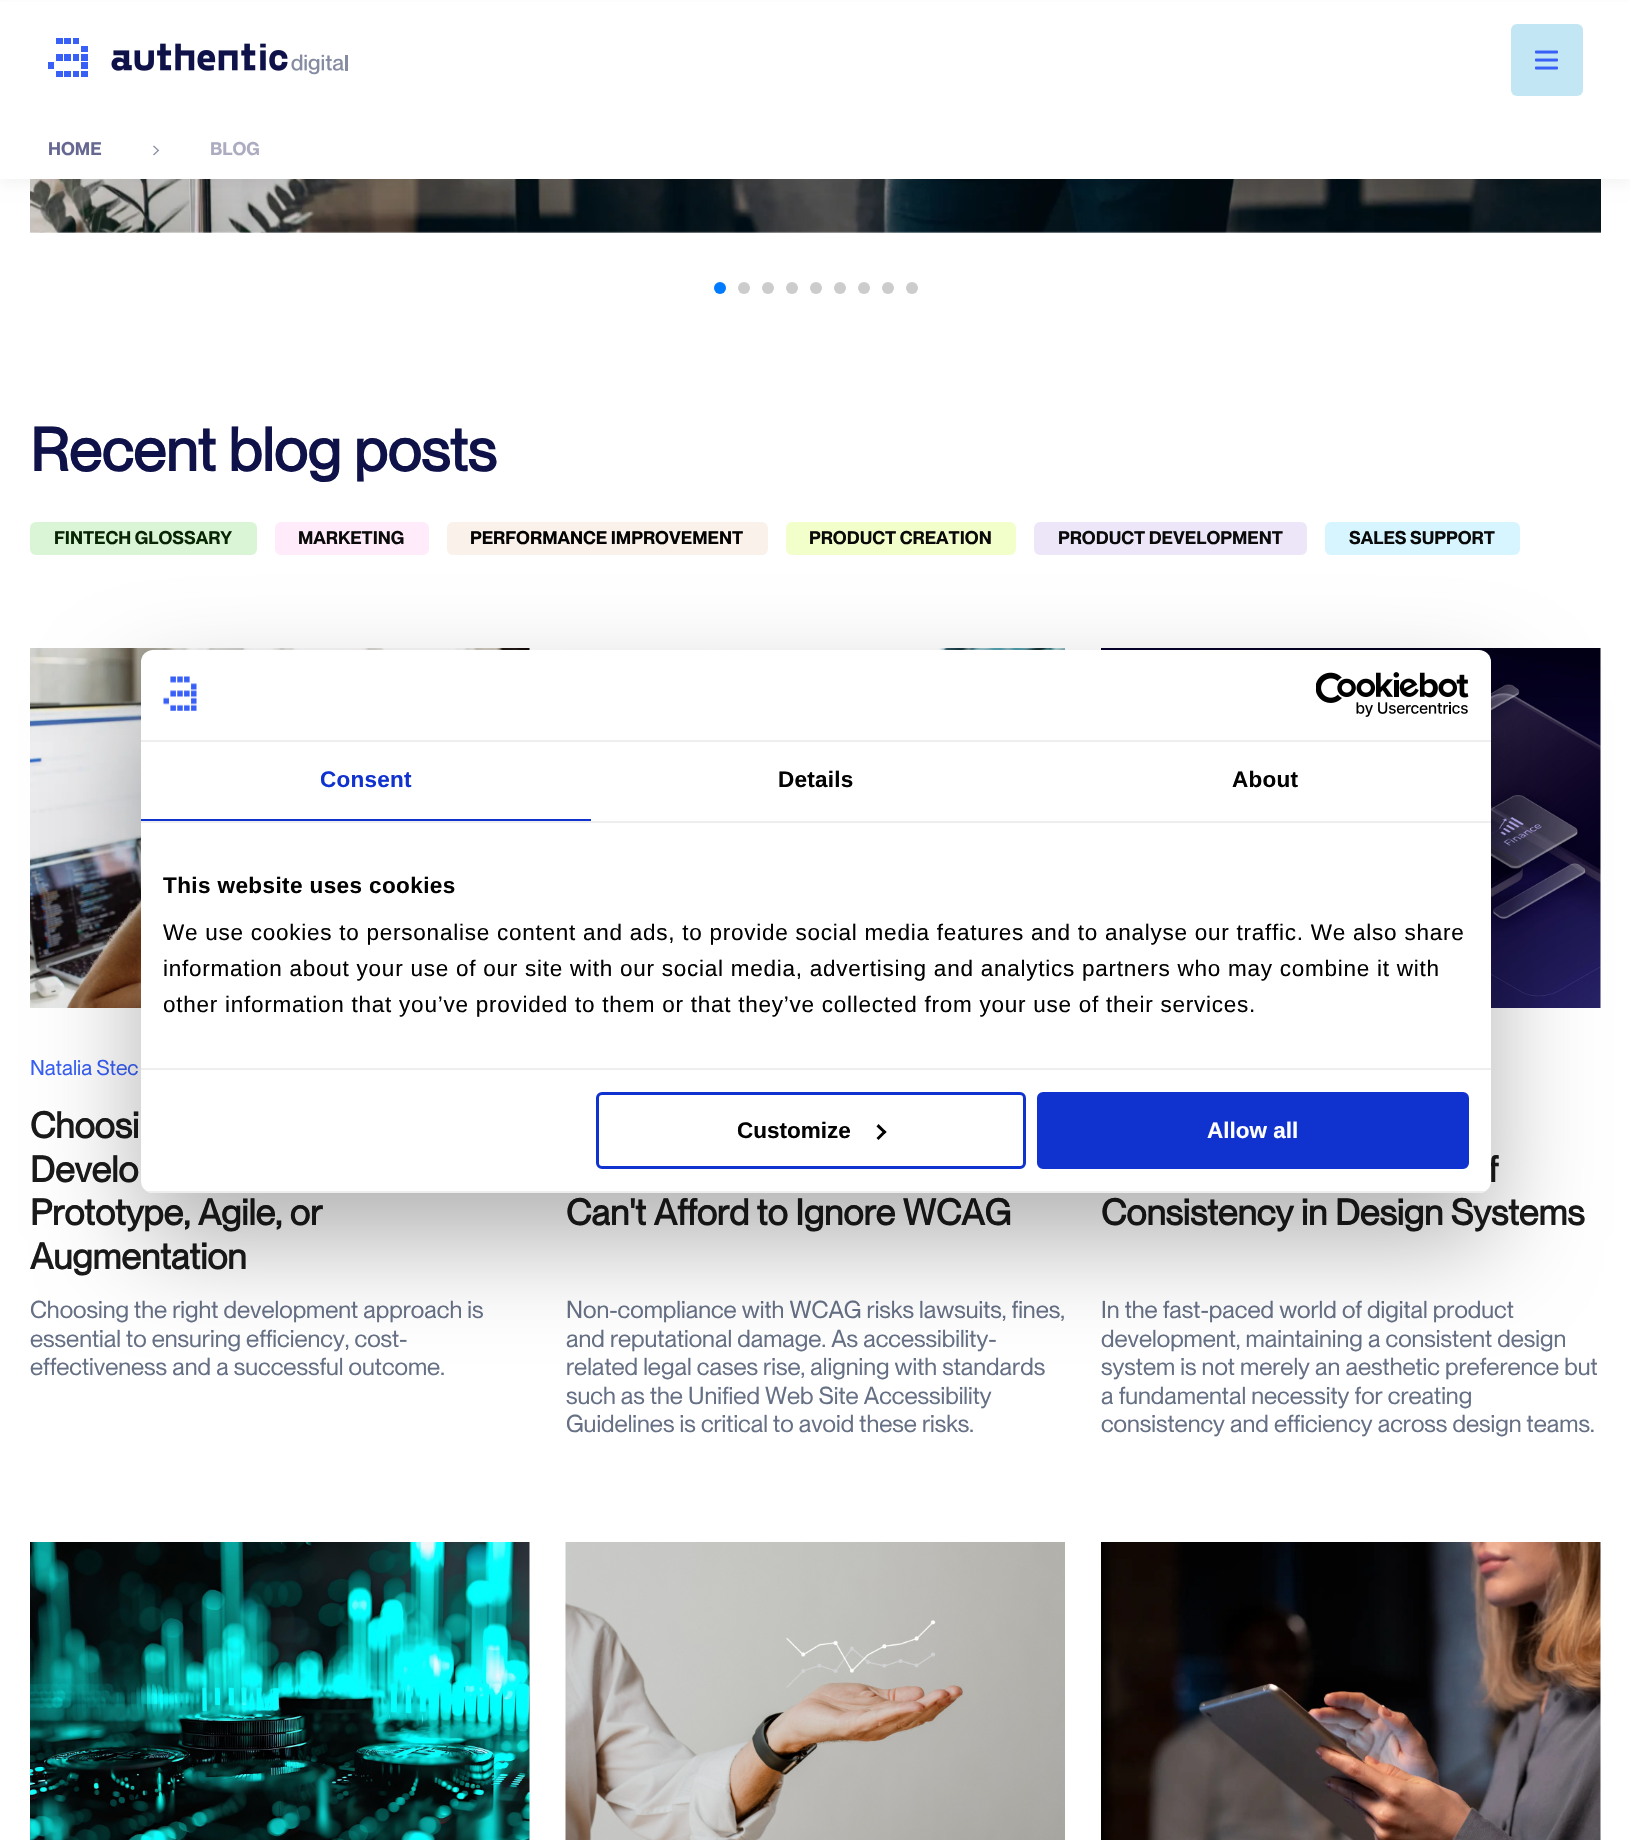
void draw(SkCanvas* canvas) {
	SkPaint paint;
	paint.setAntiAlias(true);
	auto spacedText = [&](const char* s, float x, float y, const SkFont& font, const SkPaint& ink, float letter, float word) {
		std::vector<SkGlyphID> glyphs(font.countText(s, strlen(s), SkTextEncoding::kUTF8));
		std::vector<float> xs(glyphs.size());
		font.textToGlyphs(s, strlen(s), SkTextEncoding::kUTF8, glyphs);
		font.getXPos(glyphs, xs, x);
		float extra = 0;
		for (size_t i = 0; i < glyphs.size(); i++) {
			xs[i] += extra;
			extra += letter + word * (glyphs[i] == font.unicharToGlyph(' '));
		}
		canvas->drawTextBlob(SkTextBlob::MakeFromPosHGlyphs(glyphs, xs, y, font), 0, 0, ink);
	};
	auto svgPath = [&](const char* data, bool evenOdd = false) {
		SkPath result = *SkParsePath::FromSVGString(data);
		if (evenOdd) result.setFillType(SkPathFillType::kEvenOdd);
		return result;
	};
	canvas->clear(0xffffffff);
	canvas->drawImageRect(SkImages::DeferredFromEncodedData(SkData::MakeFromFileName("img4.png")), SkRect::MakeXYWH(30, 179, 1571, 54), SkSamplingOptions());
	paint.setColor(0x0a000000);
	paint.setMaskFilter(SkMaskFilter::MakeBlur(kNormal_SkBlurStyle, 6));
	canvas->drawRect(SkRect::MakeXYWH(0, 6, 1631, 179), paint);
	paint.setMaskFilter(nullptr);
	paint.setColor(0xffffffff);
	canvas->drawRect(SkRect::MakeXYWH(0, 2, 1630, 177), paint);
	canvas->drawImageRect(SkImages::DeferredFromEncodedData(SkData::MakeFromFileName("img1.png")), SkRect::MakeXYWH(48, 38, 300, 39), SkSamplingOptions());
	paint.setColor(0xffc2e6f4);
	canvas->drawRoundRect(SkRect::MakeXYWH(1511, 24, 72, 72), 6, 6, paint);
	canvas->drawImageRect(SkImages::DeferredFromEncodedData(SkData::MakeFromFileName("img2.png")), SkRect::MakeXYWH(1535, 50, 23, 20), SkSamplingOptions());
	SkFont f1(fontMgr->matchFamilyStyle("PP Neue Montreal", SkFontStyle(600, SkFontStyle::kNormal_Width, SkFontStyle::kUpright_Slant)), 18);
	f1.setSubpixel(true);
	paint.setColor(0xff666892);
	canvas->drawString("HOME", 48, 155, f1, paint);
	canvas->drawImageRect(SkImages::DeferredFromEncodedData(SkData::MakeFromFileName("img3.png")), SkRect::MakeXYWH(153, 145, 7, 11), SkSamplingOptions());
	paint.setColor(0xffabacbf);
	canvas->drawString("BLOG", 210, 155, f1, paint);
	paint.setColor(0xff007aff);
	canvas->drawCircle(720, 288, 6, paint);
	paint.setColor(0xffcccccc);
	canvas->drawCircle(744, 288, 6, paint);
	canvas->drawCircle(768, 288, 6, paint);
	canvas->drawCircle(792, 288, 6, paint);
	canvas->drawCircle(816, 288, 6, paint);
	canvas->drawCircle(840, 288, 6, paint);
	canvas->drawCircle(864, 288, 6, paint);
	canvas->drawCircle(888, 288, 6, paint);
	canvas->drawCircle(912, 288, 6, paint);
	SkFont f2(fontMgr->matchFamilyStyle("PP Neue Montreal", SkFontStyle::Bold()), 60);
	f2.setSubpixel(true);
	paint.setColor(0xff0f1249);
	canvas->drawString("Recent blog posts", 30, 471, f2, paint);
	paint.setColor(0xffdaf5d6);
	canvas->drawRoundRect(SkRect::MakeXYWH(30, 522, 227, 33), 6, 6, paint);
	paint.setColor(0xff082504);
	canvas->drawString("FINTECH GLOSSARY", 54, 544, f1, paint);
	paint.setColor(0xffffebf9);
	canvas->drawRoundRect(SkRect::MakeXYWH(275, 522, 154, 33), 6, 6, paint);
	paint.setColor(0xff0a0a0a);
	canvas->drawString("MARKETING", 298, 544, f1, paint);
	paint.setColor(0xfffaf1eb);
	canvas->drawRoundRect(SkRect::MakeXYWH(447, 522, 321, 33), 6, 6, paint);
	paint.setColor(0xff030303);
	canvas->drawString("PERFORMANCE IMPROVEMENT", 470, 544, f1, paint);
	paint.setColor(0xfff3ffcb);
	canvas->drawRoundRect(SkRect::MakeXYWH(786, 522, 230, 33), 6, 6, paint);
	paint.setColor(0xff0a0a0a);
	canvas->drawString("PRODUCT CREATION", 809, 544, f1, paint);
	paint.setColor(0xffede6f9);
	canvas->drawRoundRect(SkRect::MakeXYWH(1034, 522, 273, 33), 6, 6, paint);
	paint.setColor(0xff0a0a0a);
	canvas->drawString("PRODUCT DEVELOPMENT", 1058, 544, f1, paint);
	paint.setColor(0xffd6f5ff);
	canvas->drawRoundRect(SkRect::MakeXYWH(1325, 522, 195, 33), 6, 6, paint);
	paint.setColor(0xff0a0a0a);
	canvas->drawString("SALES SUPPORT", 1349, 544, f1, paint);
	canvas->drawImageRect(SkImages::DeferredFromEncodedData(SkData::MakeFromFileName("img5.png")), SkRect::MakeXYWH(30, 648, 500, 360), SkSamplingOptions());
	SkFont f3(fontMgr->matchFamilyStyle("PP Neue Montreal", SkFontStyle::Normal()), 21);
	f3.setSubpixel(true);
	paint.setColor(0xff385ff6);
	canvas->drawString("Natalia Stec", 30, 1075, f3, paint);
	SkFont f4(fontMgr->matchFamilyStyle("PP Neue Montreal", SkFontStyle::Bold()), 36);
	f4.setSubpixel(true);
	paint.setColor(0xff1a1a1a);
	canvas->drawString("Choosi", 30, 1138, f4, paint);
	canvas->drawString("Develo", 30, 1182, f4, paint);
	canvas->drawString("Prototype, Agile, or", 30, 1225, f4, paint);
	canvas->drawString("Augmentation", 30, 1269, f4, paint);
	SkFont f5(fontMgr->matchFamilyStyle("PP Neue Montreal", SkFontStyle::Normal()), 24);
	f5.setSubpixel(true);
	paint.setColor(0xff667085);
	canvas->drawString("Choosing the right development approach is", 30, 1318, f5, paint);
	canvas->drawString("essential to ensuring efficiency, cost-", 30, 1347, f5, paint);
	canvas->drawString("effectiveness and a successful outcome.", 30, 1375, f5, paint);
	canvas->drawImageRect(SkImages::DeferredFromEncodedData(SkData::MakeFromFileName("img6.png")), SkRect::MakeXYWH(565, 648, 500, 2), SkSamplingOptions());
	paint.setColor(0xff1a1a1a);
	canvas->drawString("Can't Afford to Ignore WCAG", 566, 1225, f4, paint);
	paint.setColor(0xff667085);
	canvas->drawString("Non-compliance with WCAG risks lawsuits, fines,", 566, 1318, f5, paint);
	canvas->drawString("and reputational damage. As accessibility-", 566, 1347, f5, paint);
	canvas->drawString("related legal cases rise, aligning with standards", 566, 1375, f5, paint);
	canvas->drawString("such as the Unified Web Site Accessibility", 566, 1404, f5, paint);
	canvas->drawString("Guidelines is critical to avoid these risks.", 566, 1432, f5, paint);
	canvas->drawImageRect(SkImages::DeferredFromEncodedData(SkData::MakeFromFileName("img7.png")), SkRect::MakeXYWH(1101, 648, 500, 360), SkSamplingOptions());
	paint.setColor(0xff1a1a1a);
	canvas->drawString("f", 1488, 1182, f4, paint);
	canvas->drawString("Consistency in Design Systems", 1101, 1225, f4, paint);
	paint.setColor(0xff667085);
	canvas->drawString("In the fast-paced world of digital product", 1101, 1318, f5, paint);
	canvas->drawString("development, maintaining a consistent design", 1101, 1347, f5, paint);
	canvas->drawString("system is not merely an aesthetic preference but", 1101, 1375, f5, paint);
	canvas->drawString("a fundamental necessity for creating", 1101, 1404, f5, paint);
	canvas->drawString("consistency and efficiency across design teams.", 1101, 1432, f5, paint);
	canvas->drawImageRect(SkImages::DeferredFromEncodedData(SkData::MakeFromFileName("img8.png")), SkRect::MakeXYWH(30, 1542, 500, 298), SkSamplingOptions());
	canvas->drawImageRect(SkImages::DeferredFromEncodedData(SkData::MakeFromFileName("img9.png")), SkRect::MakeXYWH(565, 1542, 500, 298), SkSamplingOptions());
	canvas->drawImageRect(SkImages::DeferredFromEncodedData(SkData::MakeFromFileName("img10.png")), SkRect::MakeXYWH(1101, 1542, 500, 298), SkSamplingOptions());
	paint.setColor(0x4d000000);
	paint.setMaskFilter(SkMaskFilter::MakeBlur(kNormal_SkBlurStyle, 51));
	canvas->drawRoundRect(SkRect::MakeXYWH(141, 698, 1350, 543), 12, 12, paint);
	paint.setMaskFilter(nullptr);
	paint.setColor(0xffffffff);
	canvas->drawRoundRect(SkRect::MakeXYWH(141, 650, 1350, 543), 12, 12, paint);
	paint.setColor(0xffeeeeee);
	canvas->drawRect(SkRect::MakeXYWH(141, 740, 1350, 2), paint);
	canvas->drawImageRect(SkImages::DeferredFromEncodedData(SkData::MakeFromFileName("img11.png")), SkRect::MakeXYWH(163, 676, 34, 35), SkSamplingOptions());
	canvas->drawImageRect(SkImages::DeferredFromEncodedData(SkData::MakeFromFileName("img12.png")), SkRect::MakeXYWH(1316, 672, 153, 45), SkSamplingOptions());
	canvas->drawRect(SkRect::MakeXYWH(141, 821, 1350, 2), paint);
	paint.setColor(0xff1032cf);
	canvas->drawRect(SkRect::MakeXYWH(141, 819, 450, 2), paint);
	SkFont f6(fontMgr->matchFamilyStyle("Liberation Sans", SkFontStyle::Bold()), 22.5);
	f6.setSubpixel(true);
	spacedText("Consent", 320, 787, f6, paint, 0.25, 0);
	paint.setColor(0xff030303);
	spacedText("Details", 778, 787, f6, paint, 0.25, 0);
	spacedText("About", 1232, 787, f6, paint, 0.25, 0);
	paint.setColor(0xffeeeeee);
	canvas->drawRect(SkRect::MakeXYWH(141, 1068, 1350, 2), paint);
	paint.setColor(0xff030303);
	spacedText("This website uses cookies", 163, 893, f6, paint, 0.4, 0);
	SkFont f7(fontMgr->matchFamilyStyle("Liberation Sans", SkFontStyle::Normal()), 22.5);
	f7.setSubpixel(true);
	spacedText("We use cookies to personalise content and ads, to provide social media features and to analyse our traffic. We also share", 163, 940, f7, paint, 0.75, 0);
	spacedText("information about your use of our site with our social media, advertising and analytics partners who may combine it with", 163, 976, f7, paint, 0.75, 0);
	spacedText("other information that you’ve provided to them or that they’ve collected from your use of their services.", 163, 1012, f7, paint, 0.75, 0);
	canvas->save();
	canvas->clipPath(svgPath("M153 650H1479C1485.5 650 1491 655.5 1491 662V1181C1491 1187.5 1485.5 1193 1479 1193H153C146.5 1193 141 1187.5 141 1181V662C141 655.5 146.5 650 153 650Z"), true);
	paint.setColor(0xffeeeeee);
	canvas->drawRect(SkRect::MakeXYWH(141, 1191, 1350, 2), paint);
	canvas->restore();
	paint.setStroke(true);
	paint.setStrokeWidth(3);
	paint.setColor(0xff1032cf);
	canvas->drawRoundRect(SkRect::MakeXYWH(597.5, 1093.5, 427, 74), 4.5, 4.5, paint);
	paint.setStroke(false);
	paint.setColor(0xff030303);
	canvas->drawString("Customize", 737, 1138, f6, paint);
	paint.setColor(0xff000000);
	canvas->drawPath(svgPath("M878.5 1124L886.5 1132L884.5 1134L876.5 1126.5Z"), paint);
	canvas->drawPath(svgPath("M884.5 1130L886.5 1132L878.5 1140L876.5 1138Z"), paint);
	paint.setColor(0xff1032cf);
	canvas->drawRoundRect(SkRect::MakeXYWH(1038.5, 1093.5, 429, 74), 4.5, 4.5, paint);
	paint.setStroke(true);
	canvas->drawRoundRect(SkRect::MakeXYWH(1038.5, 1093.5, 429, 74), 4.5, 4.5, paint);
	paint.setStroke(false);
	paint.setColor(0xffffffff);
	canvas->drawString("Allow all", 1207, 1138, f6, paint);
}
